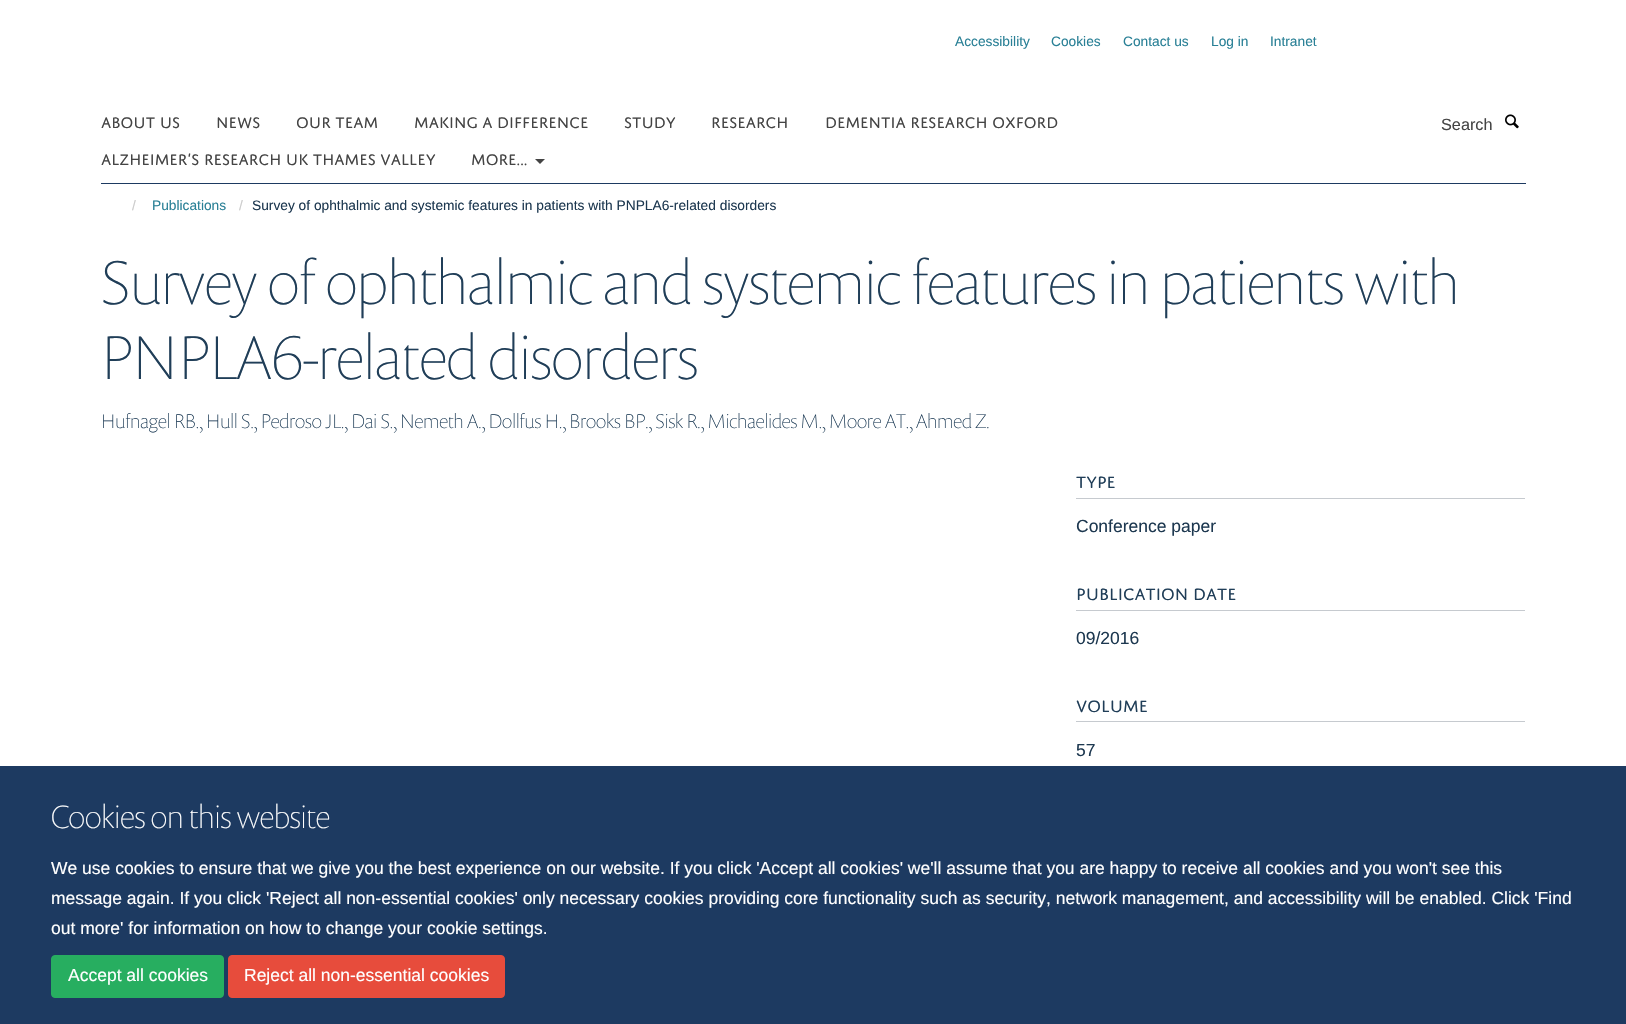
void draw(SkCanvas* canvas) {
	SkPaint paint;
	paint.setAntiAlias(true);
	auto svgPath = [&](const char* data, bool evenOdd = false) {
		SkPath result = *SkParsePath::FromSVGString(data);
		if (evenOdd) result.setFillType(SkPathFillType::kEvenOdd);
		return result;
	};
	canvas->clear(0xffffffff);
	SkFont f1(fontMgr->matchFamilyStyle("Liberation Sans", SkFontStyle::Normal()), 13.75);
	f1.setSubpixel(true);
	paint.setColor(0xff298096);
	canvas->drawString("Accessibility", 955, 46, f1, paint);
	canvas->drawString("Cookies", 1051, 46, f1, paint);
	canvas->drawString("Contact us", 1123, 46, f1, paint);
	canvas->drawString("Log in", 1211, 46, f1, paint);
	canvas->drawString("Intranet", 1270, 46, f1, paint);
	paint.setColor(0xff1d3a61);
	canvas->drawRect(SkRect::MakeXYWH(101, 183, 1425, 1), paint);
	SkFont f2(fontMgr->matchFamilyStyle("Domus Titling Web", SkFontStyle::Normal()), 16.25);
	f2.setSubpixel(true);
	paint.setColor(0xff444444);
	canvas->drawString("ABOUT US", 101, 128, f2, paint);
	canvas->drawString("NEWS", 216, 128, f2, paint);
	canvas->drawString("OUR TEAM", 296, 128, f2, paint);
	canvas->drawString("MAKING A DIFFERENCE", 414, 128, f2, paint);
	canvas->drawString("STUDY", 624, 128, f2, paint);
	canvas->drawString("RESEARCH", 711, 128, f2, paint);
	canvas->drawString("DEMENTIA RESEARCH OXFORD", 825, 128, f2, paint);
	canvas->drawString("ALZHEIMER’S RESEARCH UK THAMES VALLEY", 101, 165, f2, paint);
	canvas->drawString("MORE...", 471, 165, f2, paint);
	canvas->drawPath(svgPath("M535 159H545L540 164Z"), paint);
	SkFont f3(fontMgr->matchFamilyStyle("Liberation Sans", SkFontStyle::Normal()), 16.25);
	f3.setSubpixel(true);
	canvas->drawString("Search", 1441, 130, f3, paint);
	canvas->drawImageRect(SkImages::DeferredFromEncodedData(SkData::MakeFromFileName("img1.png")), SkRect::MakeXYWH(1505, 114, 14, 15), SkSamplingOptions());
	paint.setColor(0xffcccccc);
	canvas->drawString("/", 132, 210, f1, paint);
	paint.setColor(0xff298096);
	canvas->drawString("Publications", 152, 210, f1, paint);
	paint.setColor(0xffcccccc);
	canvas->drawString("/", 239, 210, f1, paint);
	paint.setColor(0xff1d3850);
	canvas->drawString("Survey of ophthalmic and systemic features in patients with PNPLA6-related disorders", 252, 210, f1, paint);
	SkFont f4(fontMgr->matchFamilyStyle("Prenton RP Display", SkFontStyle(100, SkFontStyle::kNormal_Width, SkFontStyle::kUpright_Slant)), 62.5);
	f4.setSubpixel(true);
	paint.setColor(0xff203e58);
	canvas->drawString("Survey of ophthalmic and systemic features in patients with", 101, 304, f4, paint);
	canvas->drawString("PNPLA6-related disorders", 101, 379, f4, paint);
	SkFont f5(fontMgr->matchFamilyStyle("Prenton RP Display", SkFontStyle(100, SkFontStyle::kNormal_Width, SkFontStyle::kUpright_Slant)), 20);
	f5.setSubpixel(true);
	canvas->drawString("Hufnagel RB., Hull S., Pedroso JL., Dai S., Nemeth A., Dollfus H., Brooks BP., Sisk R., Michaelides M., Moore AT., Ahmed Z.", 101, 428, f5, paint);
	paint.setColor(0xffc6cacf);
	canvas->drawRect(SkRect::MakeXYWH(1076, 498, 449, 1), paint);
	SkFont f6(fontMgr->matchFamilyStyle("Domus Titling Web", SkFontStyle::Normal()), 17.5);
	f6.setSubpixel(true);
	paint.setColor(0xff203e58);
	canvas->drawString("TYPE", 1076, 488, f6, paint);
	SkFont f7(fontMgr->matchFamilyStyle("Liberation Sans", SkFontStyle::Normal()), 17.5);
	f7.setSubpixel(true);
	paint.setColor(0xff1d3850);
	canvas->drawString("Conference paper", 1076, 532, f7, paint);
	paint.setColor(0xffc6cacf);
	canvas->drawRect(SkRect::MakeXYWH(1076, 610, 449, 1), paint);
	paint.setColor(0xff203e58);
	canvas->drawString("PUBLICATION DATE", 1076, 600, f6, paint);
	paint.setColor(0xff1d3850);
	canvas->drawString("09/2016", 1076, 644, f7, paint);
	paint.setColor(0xffc6cacf);
	canvas->drawRect(SkRect::MakeXYWH(1076, 721, 449, 1), paint);
	paint.setColor(0xff203e58);
	canvas->drawString("VOLUME", 1076, 712, f6, paint);
	paint.setColor(0xff1d3850);
	canvas->drawString("57", 1076, 756, f7, paint);
	paint.setColor(0xff1d3a61);
	canvas->drawRect(SkRect::MakeXYWH(0, 766, 1626, 258), paint);
	SkFont f8(fontMgr->matchFamilyStyle("Prenton RP Display", SkFontStyle(100, SkFontStyle::kNormal_Width, SkFontStyle::kUpright_Slant)), 32.5);
	f8.setSubpixel(true);
	paint.setColor(0xffffffff);
	canvas->drawString("Cookies on this website", 51, 828, f8, paint);
	canvas->drawString("We use cookies to ensure that we give you the best experience on our website. If you click 'Accept all cookies' we'll assume that you are happy to receive all cookies and you won't see this", 51, 874, f7, paint);
	canvas->drawString("message again. If you click 'Reject all non-essential cookies' only necessary cookies providing core functionality such as security, network management, and accessibility will be enabled. Click 'Find", 51, 904, f7, paint);
	canvas->drawString("out more' for information on how to change your cookie settings.", 51, 934, f7, paint);
	paint.setColor(0xff27ae60);
	canvas->drawRoundRect(SkRect::MakeXYWH(51.5, 955.5, 172, 42), 3.5, 3.5, paint);
	paint.setStroke(true);
	paint.setStrokeWidth(1);
	canvas->drawRoundRect(SkRect::MakeXYWH(51.5, 955.5, 172, 42), 3.5, 3.5, paint);
	paint.setStroke(false);
	paint.setColor(0xffffffff);
	canvas->drawString("Accept all cookies", 68, 981, f7, paint);
	paint.setColor(0xffe74c3c);
	canvas->drawRoundRect(SkRect::MakeXYWH(228.5, 955.5, 276, 42), 3.5, 3.5, paint);
	paint.setStroke(true);
	canvas->drawRoundRect(SkRect::MakeXYWH(228.5, 955.5, 276, 42), 3.5, 3.5, paint);
	paint.setStroke(false);
	paint.setColor(0xffffffff);
	canvas->drawString("Reject all non-essential cookies", 244, 981, f7, paint);
}
